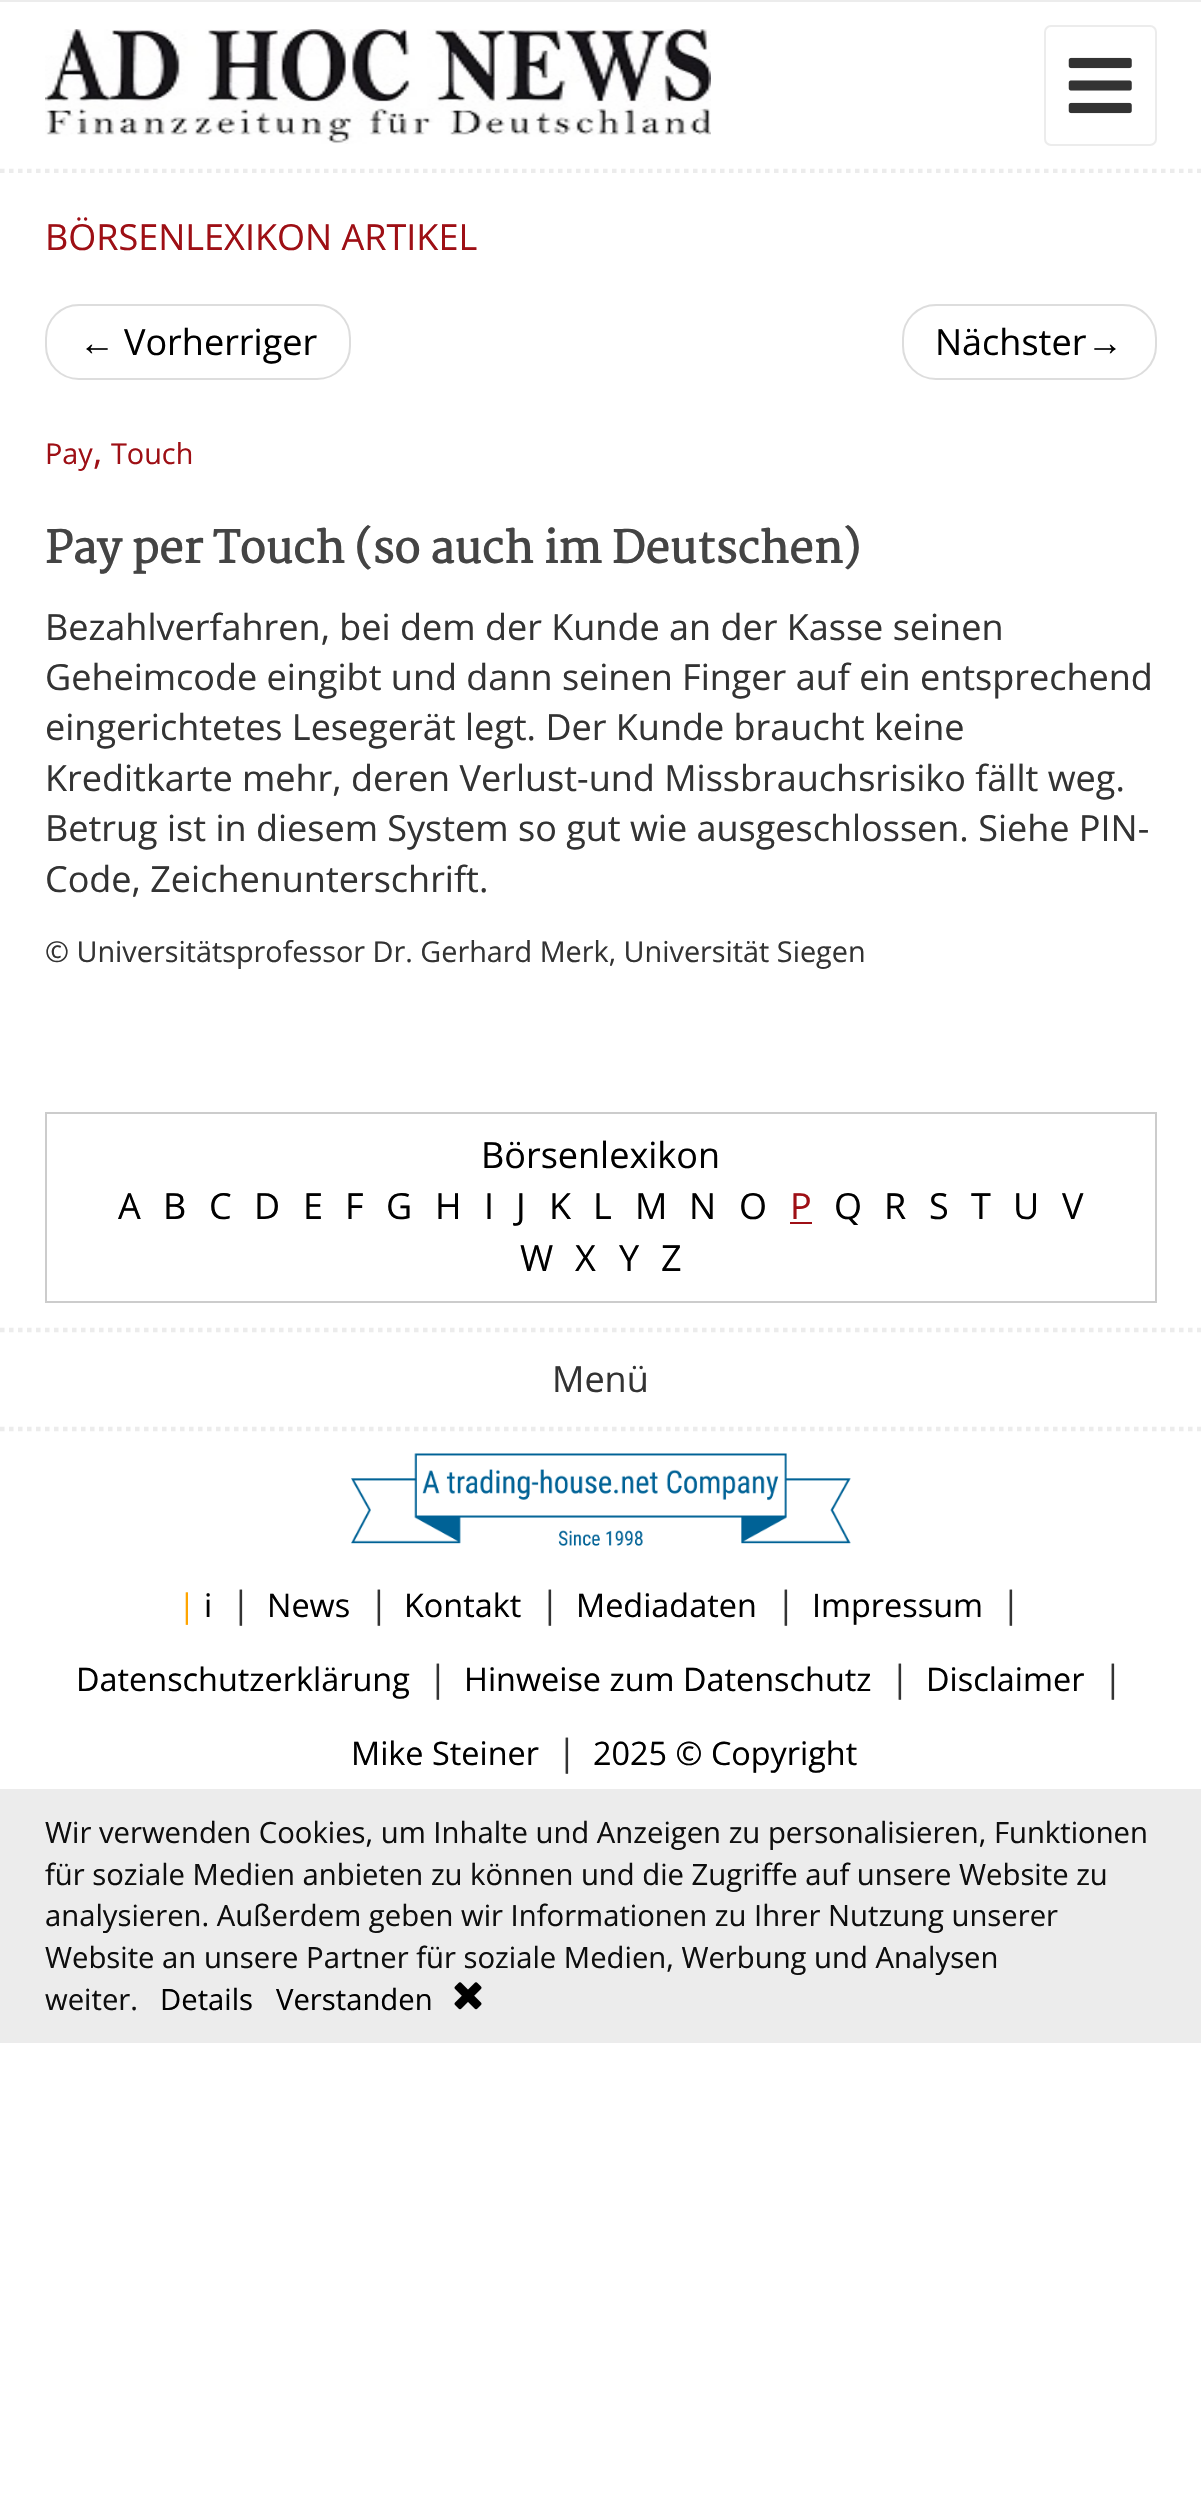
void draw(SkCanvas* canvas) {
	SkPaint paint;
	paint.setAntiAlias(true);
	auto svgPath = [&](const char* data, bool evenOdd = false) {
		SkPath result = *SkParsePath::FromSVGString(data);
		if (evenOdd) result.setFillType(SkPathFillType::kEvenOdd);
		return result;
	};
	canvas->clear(0xffffffff);
	paint.setColor(0xffececec);
	canvas->drawRect(SkRect::MakeXYWH(0, 0, 1201, 2), paint);
	paint.setStroke(true);
	paint.setStrokeWidth(4.5);
	paint.setPathEffect(SkDashPathEffect::Make({{4.5f, 4.5f}}, 0));
	canvas->drawPath(svgPath("M0 171H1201.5"), paint);
	paint.setPathEffect(nullptr);
	canvas->drawImageRect(SkImages::DeferredFromEncodedData(SkData::MakeFromFileName("img1.png")), SkRect::MakeXYWH(45, 29, 666, 115), SkSamplingOptions());
	paint.setStrokeWidth(2);
	canvas->drawRoundRect(SkRect::MakeXYWH(1045, 26, 111, 119), 6, 6, paint);
	canvas->drawImageRect(SkImages::DeferredFromEncodedData(SkData::MakeFromFileName("img2.png")), SkRect::MakeXYWH(1068, 57, 64, 57), SkSamplingOptions());
	paint.setStroke(false);
	paint.setColor(0xffffffff);
	canvas->drawRect(SkRect::MakeXYWH(0, 173, 1201, 1), paint);
	SkFont f1(fontMgr->matchFamilyStyle("Open Sans", SkFontStyle::Normal()), 36);
	f1.setSubpixel(true);
	paint.setColor(0xff9e0f15);
	canvas->drawString("BÖRSENLEXIKON ARTIKEL", 45, 250, f1, paint);
	paint.setStroke(true);
	paint.setColor(0xffdddddd);
	canvas->drawRoundRect(SkRect::MakeXYWH(46, 305, 304, 74), 33, 33, paint);
	SkFont f2(fontMgr->matchFamilyStyle("Liberation Sans", SkFontStyle::Normal()), 36);
	f2.setSubpixel(true);
	paint.setStroke(false);
	paint.setColor(0xff000000);
	canvas->drawString("←", 79, 355, f2, paint);
	canvas->drawString("Vorherriger", 124, 355, f1, paint);
	paint.setStroke(true);
	paint.setColor(0xffdddddd);
	canvas->drawRoundRect(SkRect::MakeXYWH(903, 305, 253, 74), 33, 33, paint);
	paint.setStroke(false);
	paint.setColor(0xff000000);
	canvas->drawString("Nächster", 935, 355, f1, paint);
	canvas->drawString("→", 1087, 355, f2, paint);
	SkFont f3(fontMgr->matchFamilyStyle("Open Sans", SkFontStyle::Normal()), 28.8);
	f3.setSubpixel(true);
	paint.setColor(0xff9e0f15);
	canvas->drawString("Pay", 45, 464, f3, paint);
	canvas->drawString(",", 93, 464, f1, paint);
	canvas->drawString("Touch", 111, 464, f3, paint);
	SkFont f4(fontMgr->matchFamilyStyle("Martel", SkFontStyle::Bold()), 43.25);
	f4.setSubpixel(true);
	paint.setColor(0xff444444);
	canvas->drawString("Pay per Touch (so auch im Deutschen)", 45, 563, f4, paint);
	paint.setColor(0xff333333);
	canvas->drawString("Bezahlverfahren, bei dem der Kunde an der Kasse seinen", 45, 640, f1, paint);
	canvas->drawString("Geheimcode eingibt und dann seinen Finger auf ein entsprechend", 45, 690, f1, paint);
	canvas->drawString("eingerichtetes Lesegerät legt. Der Kunde braucht keine", 45, 740, f1, paint);
	canvas->drawString("Kreditkarte mehr, deren Verlust-und Missbrauchsrisiko fällt weg.", 45, 791, f1, paint);
	canvas->drawString("Betrug ist in diesem System so gut wie ausgeschlossen. Siehe PIN-", 45, 841, f1, paint);
	canvas->drawString("Code, Zeichenunterschrift.", 45, 892, f1, paint);
	canvas->drawString("© Universitätsprofessor Dr. Gerhard Merk, Universität Siegen", 45, 962, f3, paint);
	paint.setStroke(true);
	paint.setColor(0xffcccccc);
	canvas->drawRect(SkRect::MakeXYWH(46, 1113, 1110, 189), paint);
	paint.setStroke(false);
	paint.setColor(0xff000000);
	canvas->drawString("Börsenlexikon", 481, 1168, f1, paint);
	canvas->drawString("A", 118, 1219, f1, paint);
	canvas->drawString("B", 163, 1219, f1, paint);
	canvas->drawString("C", 209, 1219, f1, paint);
	canvas->drawString("D", 254, 1219, f1, paint);
	canvas->drawString("E", 303, 1219, f1, paint);
	canvas->drawString("F", 345, 1219, f1, paint);
	canvas->drawString("G", 386, 1219, f1, paint);
	canvas->drawString("H", 435, 1219, f1, paint);
	canvas->drawString("I", 484, 1219, f1, paint);
	canvas->drawString("J", 516, 1219, f1, paint);
	canvas->drawString("K", 549, 1219, f1, paint);
	canvas->drawString("L", 593, 1219, f1, paint);
	canvas->drawString("M", 635, 1219, f1, paint);
	canvas->drawString("N", 689, 1219, f1, paint);
	canvas->drawString("O", 739, 1219, f1, paint);
	paint.setColor(0xff9e0f15);
	canvas->drawString("P", 790, 1219, f1, paint);
	canvas->drawRect(SkRect::MakeXYWH(790, 1222, 22, 2), paint);
	paint.setColor(0xff000000);
	canvas->drawString("Q", 834, 1219, f1, paint);
	canvas->drawString("R", 884, 1219, f1, paint);
	canvas->drawString("S", 929, 1219, f1, paint);
	canvas->drawString("T", 971, 1219, f1, paint);
	canvas->drawString("U", 1013, 1219, f1, paint);
	canvas->drawString("V", 1062, 1219, f1, paint);
	canvas->drawString("W", 520, 1271, f1, paint);
	canvas->drawString("X", 575, 1271, f1, paint);
	canvas->drawString("Y", 619, 1271, f1, paint);
	canvas->drawString("Z", 661, 1271, f1, paint);
	paint.setStroke(true);
	paint.setStrokeWidth(4.5);
	paint.setColor(0xffececec);
	paint.setPathEffect(SkDashPathEffect::Make({{4.5f, 4.5f}}, 0));
	canvas->drawPath(svgPath("M0 1330H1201.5"), paint);
	paint.setPathEffect(nullptr);
	paint.setPathEffect(SkDashPathEffect::Make({{4.5f, 4.5f}}, 0));
	canvas->drawPath(svgPath("M0 1429H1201.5"), paint);
	paint.setPathEffect(nullptr);
	paint.setStroke(false);
	paint.setColor(0xff333333);
	canvas->drawString("Menü", 552, 1392, f1, paint);
	canvas->drawImageRect(SkImages::DeferredFromEncodedData(SkData::MakeFromFileName("img3.png")), SkRect::MakeXYWH(351, 1453, 500, 93), SkSamplingOptions());
	SkFont f5(fontMgr->matchFamilyStyle("Open Sans", SkFontStyle::Normal()), 32.4);
	f5.setSubpixel(true);
	paint.setColor(0xffffa500);
	canvas->drawString("|", 178, 1617, f5, paint);
	paint.setColor(0xff000000);
	canvas->drawString("i", 204, 1617, f5, paint);
	paint.setColor(0xff333333);
	canvas->drawString("|", 231, 1617, f1, paint);
	paint.setColor(0xff000000);
	canvas->drawString("News", 267, 1617, f5, paint);
	paint.setColor(0xff333333);
	canvas->drawString("|", 369, 1617, f1, paint);
	paint.setColor(0xff000000);
	canvas->drawString("Kontakt", 404, 1617, f5, paint);
	paint.setColor(0xff333333);
	canvas->drawString("|", 540, 1617, f1, paint);
	paint.setColor(0xff000000);
	canvas->drawString("Mediadaten", 576, 1617, f5, paint);
	paint.setColor(0xff333333);
	canvas->drawString("|", 776, 1617, f1, paint);
	paint.setColor(0xff000000);
	canvas->drawString("Impressum", 812, 1617, f5, paint);
	paint.setColor(0xff333333);
	canvas->drawString("|", 1001, 1617, f1, paint);
	paint.setColor(0xff000000);
	canvas->drawString("Datenschutzerklärung", 76, 1691, f5, paint);
	paint.setColor(0xff333333);
	canvas->drawString("|", 428, 1691, f1, paint);
	paint.setColor(0xff000000);
	canvas->drawString("Hinweise zum Datenschutz", 464, 1691, f5, paint);
	paint.setColor(0xff333333);
	canvas->drawString("|", 890, 1691, f1, paint);
	paint.setColor(0xff000000);
	canvas->drawString("Disclaimer", 926, 1691, f5, paint);
	paint.setColor(0xff333333);
	canvas->drawString("|", 1103, 1691, f1, paint);
	paint.setColor(0xff000000);
	canvas->drawString("Mike Steiner", 351, 1765, f5, paint);
	paint.setColor(0xff333333);
	canvas->drawString("|", 557, 1765, f1, paint);
	paint.setColor(0xff000000);
	canvas->drawString("2025 © Copyright", 593, 1765, f5, paint);
	paint.setColor(0xffececec);
	canvas->drawRect(SkRect::MakeXYWH(0, 1789, 1201, 254), paint);
	SkFont f6(fontMgr->matchFamilyStyle("Open Sans", SkFontStyle::Normal()), 29.25);
	f6.setSubpixel(true);
	paint.setColor(0xff0e0e0e);
	canvas->drawString("Wir verwenden Cookies, um Inhalte und Anzeigen zu personalisieren, Funktionen", 45, 1843, f6, paint);
	canvas->drawString("für soziale Medien anbieten zu können und die Zugriffe auf unsere Website zu", 45, 1885, f6, paint);
	canvas->drawString("analysieren. Außerdem geben wir Informationen zu Ihrer Nutzung unserer", 45, 1926, f6, paint);
	canvas->drawString("Website an unsere Partner für soziale Medien, Werbung und Analysen", 45, 1968, f6, paint);
	canvas->drawString("weiter.", 45, 2010, f6, paint);
	paint.setColor(0xff000000);
	canvas->drawString("Details", 160, 2010, f6, paint);
	canvas->drawString("Verstanden", 276, 2010, f6, paint);
	canvas->drawImageRect(SkImages::DeferredFromEncodedData(SkData::MakeFromFileName("img4.png")), SkRect::MakeXYWH(454, 1982, 28, 28), SkSamplingOptions());
}
